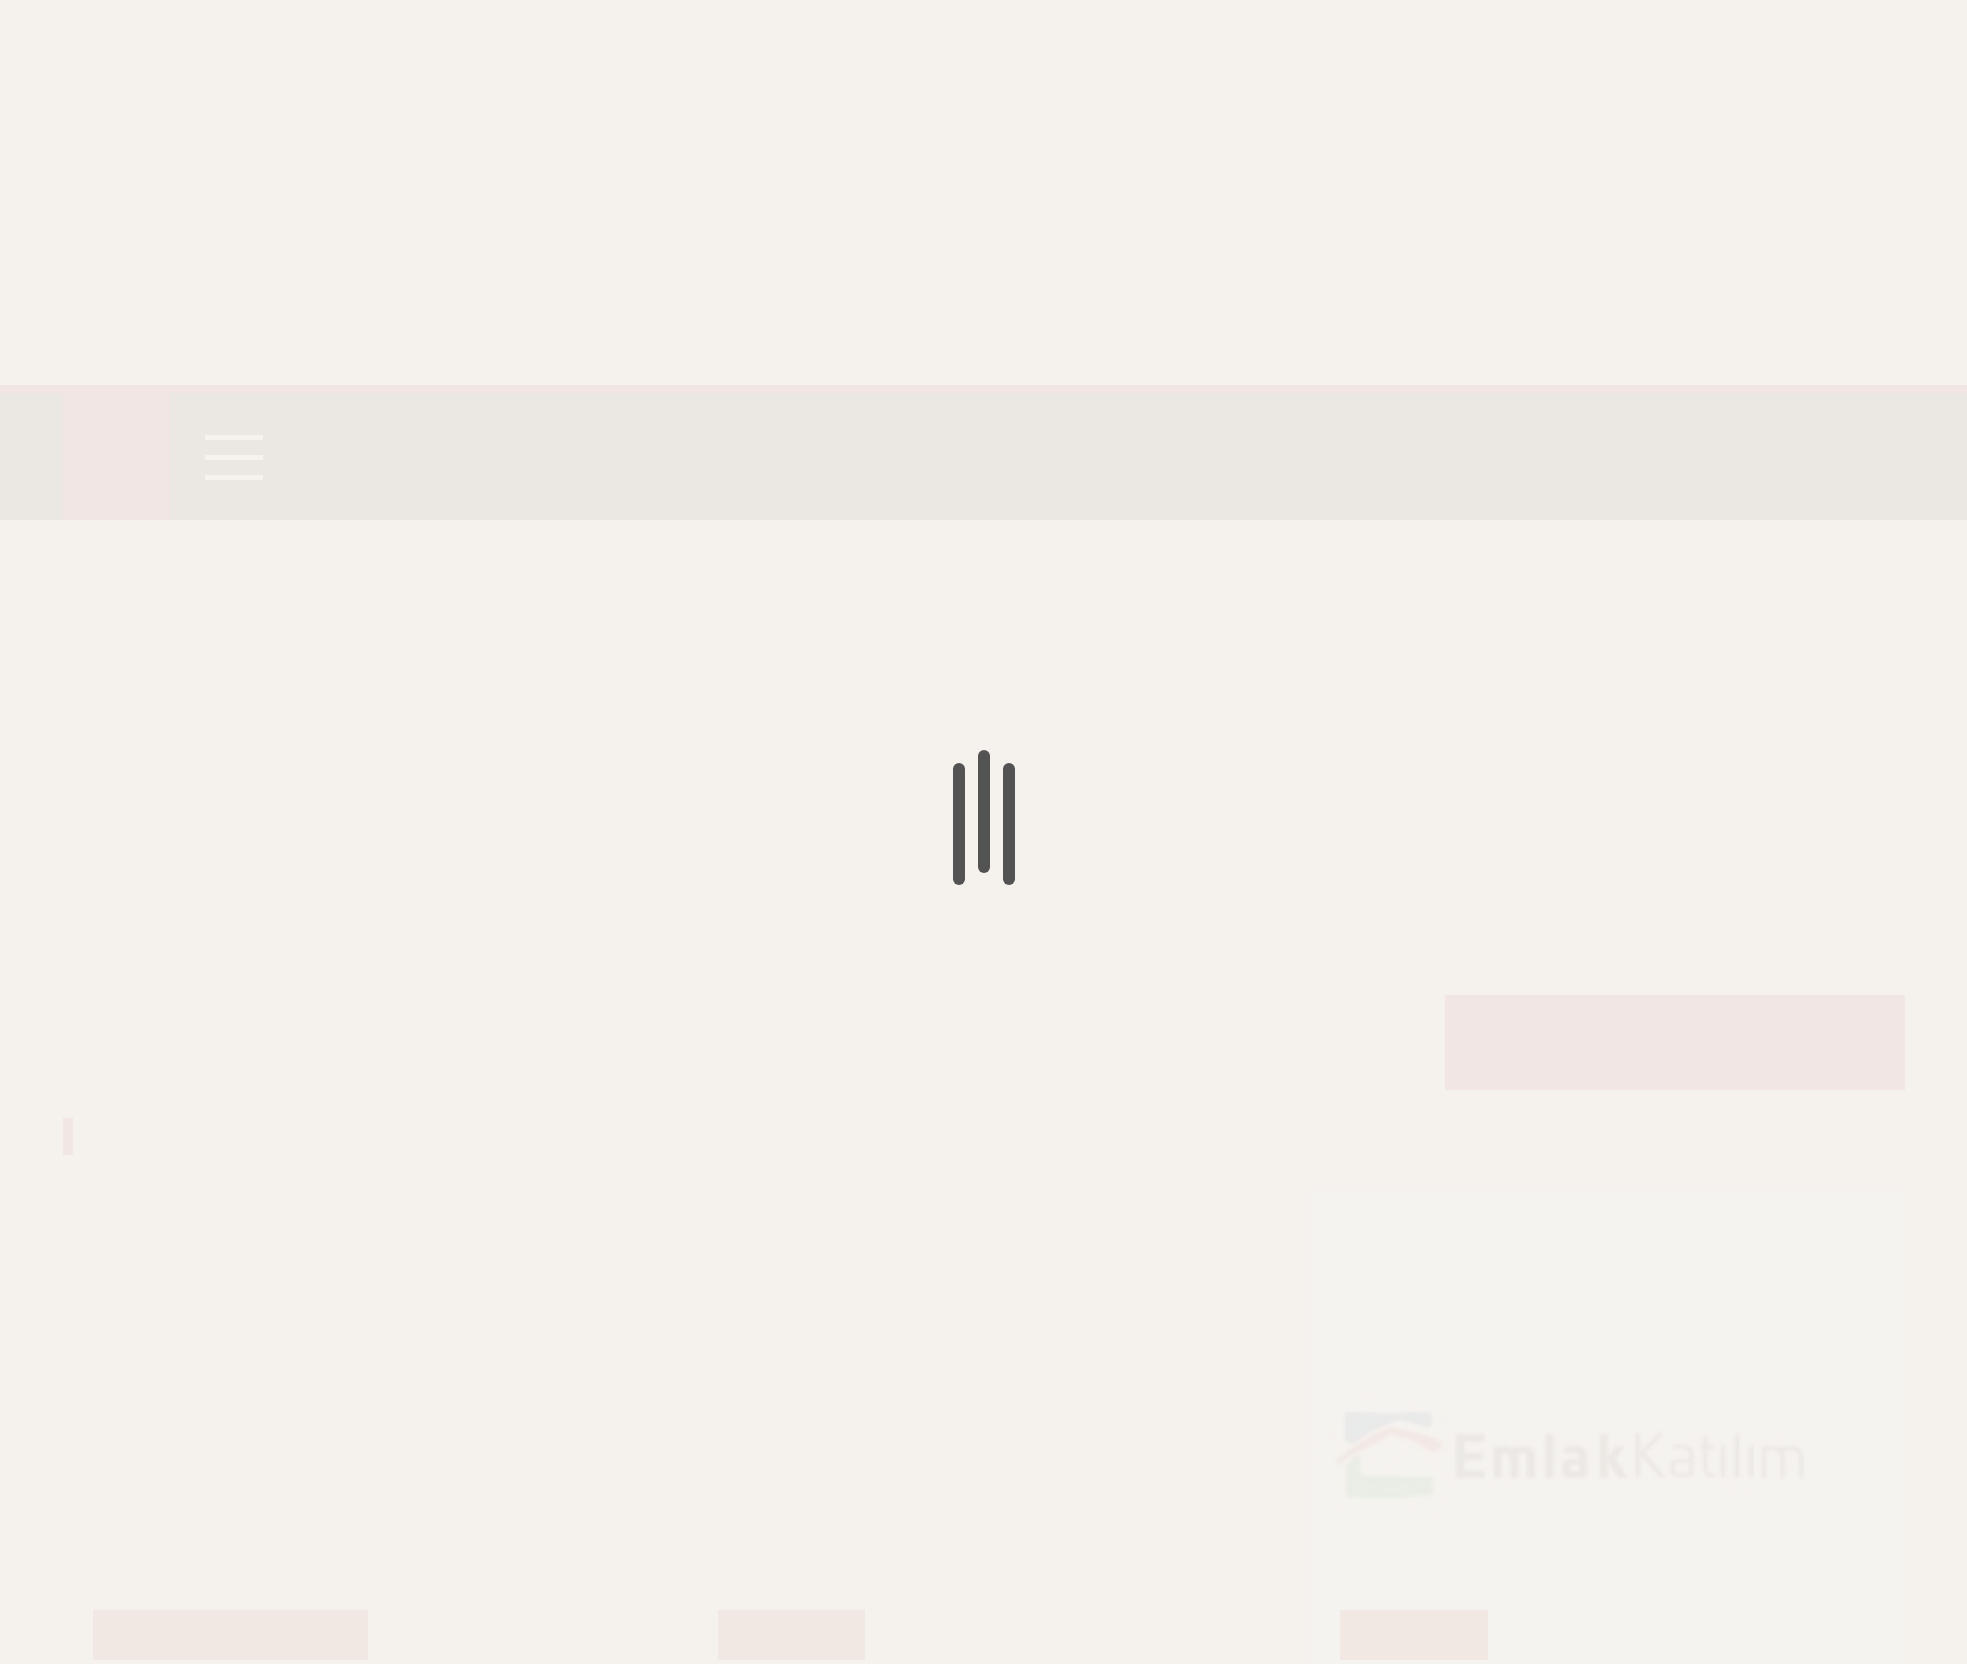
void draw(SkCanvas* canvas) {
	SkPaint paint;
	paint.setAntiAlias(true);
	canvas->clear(0xfff5f2ee);
	paint.setColor(0xffebe8e4);
	canvas->drawRect(SkRect::MakeXYWH(0, 393, 1967, 127), paint);
	paint.setColor(0xfff1e6e3);
	canvas->drawRect(SkRect::MakeXYWH(0, 385, 1967, 8), paint);
	canvas->drawRect(SkRect::MakeXYWH(63, 393, 107, 127), paint);
	paint.setColor(0xfff6f3ef);
	canvas->drawRect(SkRect::MakeXYWH(205, 455, 58, 5), paint);
	canvas->drawRect(SkRect::MakeXYWH(205, 435, 58, 5), paint);
	canvas->drawRect(SkRect::MakeXYWH(205, 475, 58, 5), paint);
	paint.setColor(0xfff1e6e3);
	canvas->drawRect(SkRect::MakeXYWH(1445, 995, 460, 95), paint);
	canvas->drawRect(SkRect::MakeXYWH(63, 1118, 10, 37), paint);
	paint.setColor(0xfff1e7e3);
	canvas->drawRect(SkRect::MakeXYWH(93, 1610, 275, 50), paint);
	canvas->drawRect(SkRect::MakeXYWH(718, 1610, 147, 50), paint);
	canvas->drawImageRect(SkImages::DeferredFromEncodedData(SkData::MakeFromFileName("img1.png")), SkRect::MakeXYWH(1310, 1190, 595, 474), SkSamplingOptions());
	canvas->drawRect(SkRect::MakeXYWH(1340, 1610, 148, 50), paint);
	paint.setColor(0xf24a4a4a);
	canvas->drawRoundRect(SkRect::MakeXYWH(978, 750, 12, 123), 6, 6, paint);
	canvas->drawRoundRect(SkRect::MakeXYWH(953, 763, 12, 122), 6, 6, paint);
	canvas->drawRoundRect(SkRect::MakeXYWH(1003, 763, 12, 122), 6, 6, paint);
}
